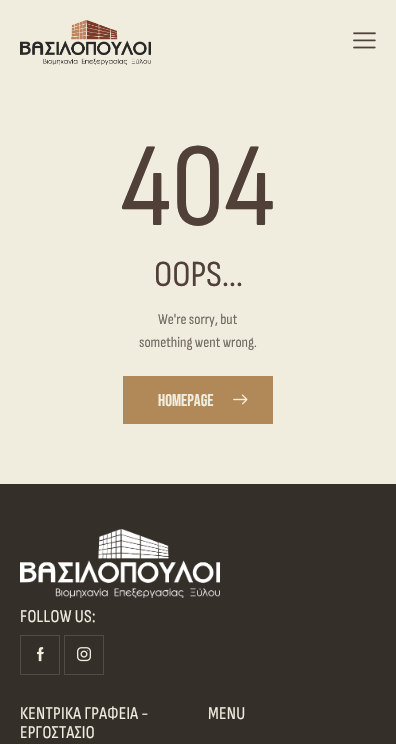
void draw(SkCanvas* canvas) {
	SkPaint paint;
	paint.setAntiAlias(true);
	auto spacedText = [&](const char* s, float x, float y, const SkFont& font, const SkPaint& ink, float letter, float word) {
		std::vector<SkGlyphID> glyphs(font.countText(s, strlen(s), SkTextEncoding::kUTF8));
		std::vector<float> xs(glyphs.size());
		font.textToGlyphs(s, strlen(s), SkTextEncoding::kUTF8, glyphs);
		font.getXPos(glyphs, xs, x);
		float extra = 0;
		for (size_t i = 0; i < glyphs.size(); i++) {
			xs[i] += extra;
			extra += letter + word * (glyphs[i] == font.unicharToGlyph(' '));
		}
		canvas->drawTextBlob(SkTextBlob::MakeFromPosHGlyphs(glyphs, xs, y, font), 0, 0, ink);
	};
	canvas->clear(0xfff0eddf);
	canvas->drawImageRect(SkImages::DeferredFromEncodedData(SkData::MakeFromFileName("img1.png")), SkRect::MakeXYWH(20, 20, 131, 45), SkSamplingOptions());
	canvas->drawImageRect(SkImages::DeferredFromEncodedData(SkData::MakeFromFileName("img2.png")), SkRect::MakeXYWH(353, 32, 23, 17), SkSamplingOptions());
	SkFont f1(fontMgr->matchFamilyStyle("Sofia Sans Condensed", SkFontStyle::Normal()), 120);
	f1.setSubpixel(true);
	paint.setColor(0xff504037);
	canvas->drawString("404", 121, 225, f1, paint);
	SkFont f2(fontMgr->matchFamilyStyle("Sofia Sans Condensed", SkFontStyle::Normal()), 37);
	f2.setSubpixel(true);
	canvas->drawString("OOPS...", 154, 286, f2, paint);
	SkFont f3(fontMgr->matchFamilyStyle("Sofia Sans Condensed", SkFontStyle::Normal()), 15);
	f3.setSubpixel(true);
	paint.setColor(0xff716a60);
	canvas->drawString("We're sorry, but", 158, 324, f3, paint);
	canvas->drawString("something went wrong.", 139, 347, f3, paint);
	paint.setColor(0xffb18857);
	canvas->drawRect(SkRect::MakeXYWH(123, 376, 150, 48), paint);
	SkFont f4(fontMgr->matchFamilyStyle("Bebas Neue", SkFontStyle::Normal()), 17);
	f4.setSubpixel(true);
	paint.setColor(0xfff0eddf);
	canvas->drawString("HOMEPAGE", 158, 406, f4, paint);
	canvas->drawImageRect(SkImages::DeferredFromEncodedData(SkData::MakeFromFileName("img3.png")), SkRect::MakeXYWH(233, 394, 15, 11), SkSamplingOptions());
	paint.setColor(0xff352f2a);
	canvas->drawRect(SkRect::MakeXYWH(0, 484, 396, 260), paint);
	canvas->drawImageRect(SkImages::DeferredFromEncodedData(SkData::MakeFromFileName("img4.png")), SkRect::MakeXYWH(20, 529, 200, 69), SkSamplingOptions());
	SkFont f5(fontMgr->matchFamilyStyle("Sofia Sans Condensed", SkFontStyle::Normal()), 18);
	f5.setSubpixel(true);
	paint.setColor(0xfff0eddf);
	spacedText("FOLLOW US:", 20, 622, f5, paint, 0.3, 0);
	paint.setStroke(true);
	paint.setStrokeWidth(1);
	paint.setColor(0xff514c45);
	canvas->drawRect(SkRect::MakeXYWH(20.5, 635.5, 39, 39), paint);
	canvas->drawImageRect(SkImages::DeferredFromEncodedData(SkData::MakeFromFileName("img5.png")), SkRect::MakeXYWH(37, 647, 7, 15), SkSamplingOptions());
	canvas->drawRect(SkRect::MakeXYWH(64.5, 635.5, 39, 39), paint);
	canvas->drawImageRect(SkImages::DeferredFromEncodedData(SkData::MakeFromFileName("img6.png")), SkRect::MakeXYWH(77, 647, 14, 15), SkSamplingOptions());
	paint.setStroke(false);
	paint.setColor(0xfff0eddf);
	spacedText("ΚΕΝΤΡΙΚΑ ΓΡΑΦΕΙΑ -", 20, 719, f5, paint, 0.3, 0);
	spacedText("ΕΡΓΟΣΤΑΣΙΟ", 20, 738, f5, paint, 0.3, 0);
	spacedText("MENU", 208, 719, f5, paint, 0.3, 0);
}
